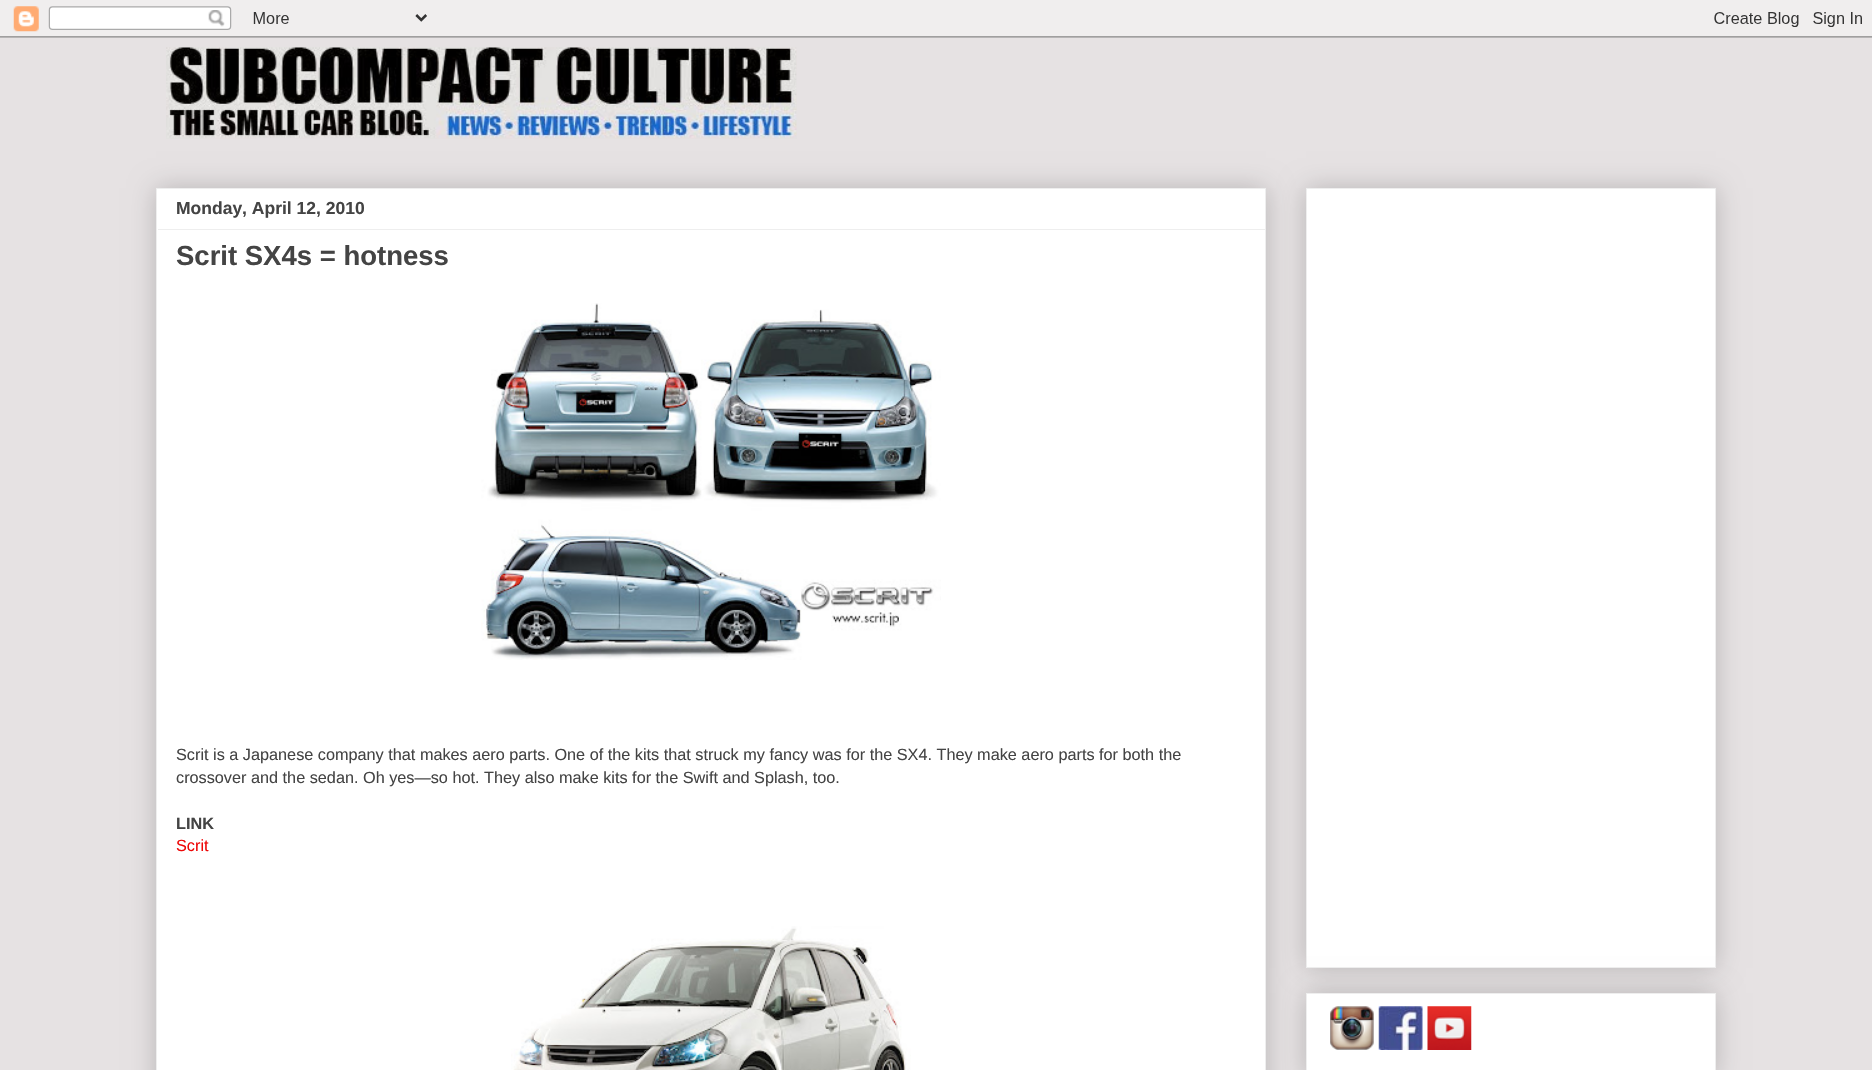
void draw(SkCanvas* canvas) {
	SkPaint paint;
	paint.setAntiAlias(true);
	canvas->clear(0xffe6e2e3);
	canvas->drawImageRect(SkImages::DeferredFromEncodedData(SkData::MakeFromFileName("img1.png")), SkRect::MakeXYWH(0, 0, 1872, 38), SkSamplingOptions());
	canvas->drawImageRect(SkImages::DeferredFromEncodedData(SkData::MakeFromFileName("img2.png")), SkRect::MakeXYWH(166, 47, 631, 92), SkSamplingOptions());
	paint.setColor(0x33000000);
	paint.setMaskFilter(SkMaskFilter::MakeBlur(kNormal_SkBlurStyle, 12.5));
	canvas->drawRect(SkRect::MakeXYWH(156, 188, 1110, 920), paint);
	paint.setMaskFilter(nullptr);
	paint.setColor(0xffffffff);
	canvas->drawRect(SkRect::MakeXYWH(156.5, 188.5, 1109, 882), paint);
	paint.setStroke(true);
	paint.setStrokeWidth(1);
	paint.setColor(0xffeeeeee);
	canvas->drawRect(SkRect::MakeXYWH(156.5, 188.5, 1109, 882), paint);
	SkFont f1(fontMgr->matchFamilyStyle("Liberation Sans", SkFontStyle::Bold()), 17.5);
	f1.setSubpixel(true);
	paint.setStroke(false);
	paint.setColor(0xff444444);
	canvas->drawString("Monday, April 12, 2010", 176, 214, f1, paint);
	paint.setColor(0xffeeeeee);
	canvas->drawRect(SkRect::MakeXYWH(158, 229, 1107, 1), paint);
	SkFont f2(fontMgr->matchFamilyStyle("Liberation Sans", SkFontStyle::Bold()), 27.5);
	f2.setSubpixel(true);
	paint.setColor(0xff444444);
	canvas->drawString("Scrit SX4s = hotness", 176, 265, f2, paint);
	canvas->drawImageRect(SkImages::DeferredFromEncodedData(SkData::MakeFromFileName("img3.png")), SkRect::MakeXYWH(481, 303, 460, 357), SkSamplingOptions());
	SkFont f3(fontMgr->matchFamilyStyle("Liberation Sans", SkFontStyle::Normal()), 16.25);
	f3.setSubpixel(true);
	canvas->drawString("Scrit is a Japanese company that makes aero parts. One of the kits that struck my fancy was for the SX4. They make aero parts for both the", 176, 760, f3, paint);
	canvas->drawString("crossover and the sedan. Oh yes—so hot. They also make kits for the Swift and Splash, too.", 176, 783, f3, paint);
	SkFont f4(fontMgr->matchFamilyStyle("Liberation Sans", SkFontStyle::Bold()), 16.25);
	f4.setSubpixel(true);
	canvas->drawString("LINK", 176, 829, f4, paint);
	paint.setColor(0xffee0707);
	canvas->drawString("Scrit", 176, 851, f3, paint);
	canvas->drawImageRect(SkImages::DeferredFromEncodedData(SkData::MakeFromFileName("img4.png")), SkRect::MakeXYWH(511, 926, 400, 144), SkSamplingOptions());
	paint.setColor(0x33000000);
	paint.setMaskFilter(SkMaskFilter::MakeBlur(kNormal_SkBlurStyle, 12.5));
	canvas->drawRect(SkRect::MakeXYWH(1306, 188, 410, 780), paint);
	paint.setMaskFilter(nullptr);
	paint.setColor(0xffffffff);
	canvas->drawRect(SkRect::MakeXYWH(1306.5, 188.5, 409, 779), paint);
	paint.setStroke(true);
	paint.setColor(0xffeeeeee);
	canvas->drawRect(SkRect::MakeXYWH(1306.5, 188.5, 409, 779), paint);
	paint.setStroke(false);
	paint.setColor(0x33000000);
	paint.setMaskFilter(SkMaskFilter::MakeBlur(kNormal_SkBlurStyle, 12.5));
	canvas->drawRect(SkRect::MakeXYWH(1306, 993, 410, 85), paint);
	paint.setMaskFilter(nullptr);
	paint.setColor(0xffffffff);
	canvas->drawRect(SkRect::MakeXYWH(1306.5, 993.5, 409, 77), paint);
	paint.setStroke(true);
	paint.setColor(0xffeeeeee);
	canvas->drawRect(SkRect::MakeXYWH(1306.5, 993.5, 409, 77), paint);
	canvas->drawImageRect(SkImages::DeferredFromEncodedData(SkData::MakeFromFileName("img5.png")), SkRect::MakeXYWH(1330, 1006, 44, 44), SkSamplingOptions());
	canvas->drawImageRect(SkImages::DeferredFromEncodedData(SkData::MakeFromFileName("img6.png")), SkRect::MakeXYWH(1378, 1006, 45, 44), SkSamplingOptions());
	canvas->drawImageRect(SkImages::DeferredFromEncodedData(SkData::MakeFromFileName("img7.png")), SkRect::MakeXYWH(1427, 1006, 45, 44), SkSamplingOptions());
}
